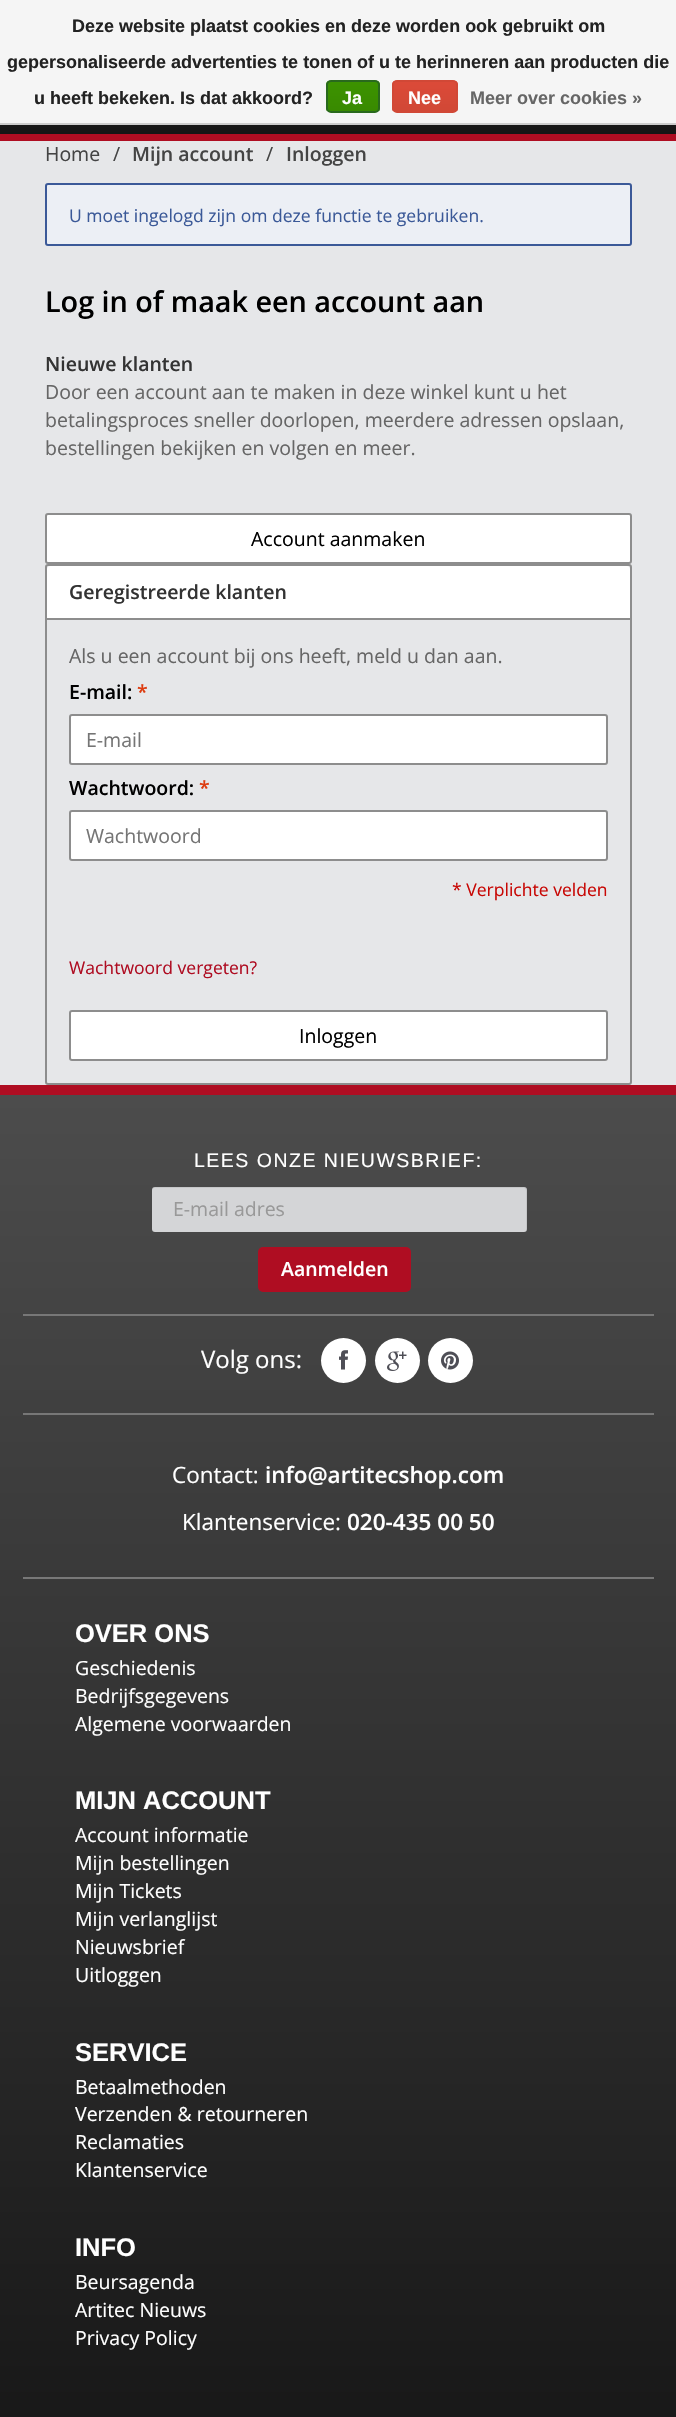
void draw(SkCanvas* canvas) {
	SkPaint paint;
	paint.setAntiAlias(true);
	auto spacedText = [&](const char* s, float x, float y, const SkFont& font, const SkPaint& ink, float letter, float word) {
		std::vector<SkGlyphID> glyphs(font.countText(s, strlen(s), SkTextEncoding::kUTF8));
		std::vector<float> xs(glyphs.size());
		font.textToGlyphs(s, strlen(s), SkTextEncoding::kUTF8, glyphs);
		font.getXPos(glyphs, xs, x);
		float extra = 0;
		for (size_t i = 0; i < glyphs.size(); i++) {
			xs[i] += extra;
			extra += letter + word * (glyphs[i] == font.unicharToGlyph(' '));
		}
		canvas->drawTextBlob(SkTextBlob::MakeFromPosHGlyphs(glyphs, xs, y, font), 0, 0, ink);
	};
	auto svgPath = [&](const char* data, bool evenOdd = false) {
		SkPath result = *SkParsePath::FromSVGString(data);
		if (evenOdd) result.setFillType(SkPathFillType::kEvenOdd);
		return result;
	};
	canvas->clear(0xffe6e7e9);
	paint.setColor(0xfff5f5f5);
	canvas->drawRect(SkRect::MakeXYWH(0, 0, 676, 123), paint);
	paint.setColor(0xffcccccc);
	canvas->drawRect(SkRect::MakeXYWH(0, 123, 676, 2), paint);
	SkFont f1(fontMgr->matchFamilyStyle("Liberation Sans", SkFontStyle::Bold()), 18);
	f1.setSubpixel(true);
	paint.setColor(0xff222222);
	canvas->drawString("Deze website plaatst cookies en deze worden ook gebruikt om", 72, 32, f1, paint);
	canvas->drawString("gepersonaliseerde advertenties te tonen of u te herinneren aan producten die", 7, 68, f1, paint);
	canvas->drawString("u heeft bekeken. Is dat akkoord?", 34, 104, f1, paint);
	canvas->save();
	canvas->clipPath(svgPath("M331 80H375C378 80 380 82 380 85V108C380 111 378 113 375 113H331C328 113 326 111 326 108V85C326 82 328 80 331 80Z"), true);
	{
		const SkColor colors[] = {0xff3c9300, 0xff398a00};
		const float stops[] = {0, 1};
		const SkPoint ends[] = {{353, 81}, {353, 111}};
		paint.setShader(SkGradientShader::MakeLinear(ends, colors, stops, 2, SkTileMode::kClamp));
		paint.setAlpha(255);
	}
	canvas->drawRect(SkRect::MakeXYWH(326, 81, 54, 30), paint);
	canvas->restore();
	paint.setStroke(true);
	paint.setStrokeWidth(2);
	paint.setShader(nullptr);
	paint.setColor(0xff29691d);
	canvas->drawRoundRect(SkRect::MakeXYWH(327, 81, 52, 31), 4, 4, paint);
	paint.setStroke(false);
	paint.setColor(0xffffffff);
	canvas->drawString("Ja", 342, 104, f1, paint);
	canvas->save();
	canvas->clipPath(svgPath("M397 80H453C456 80 458 82 458 85V108C458 111 456 113 453 113H397C394 113 392 111 392 108V85C392 82 394 80 397 80Z"), true);
	{
		const SkColor colors[] = {0xffdc4a38, 0xffd14836};
		const float stops[] = {0, 1};
		const SkPoint ends[] = {{425, 81}, {425, 111}};
		paint.setShader(SkGradientShader::MakeLinear(ends, colors, stops, 2, SkTileMode::kClamp));
		paint.setAlpha(255);
	}
	canvas->drawRect(SkRect::MakeXYWH(392, 81, 66, 30), paint);
	canvas->restore();
	paint.setStroke(true);
	paint.setShader(nullptr);
	paint.setColor(0xffd14836);
	canvas->drawRoundRect(SkRect::MakeXYWH(393, 81, 64, 31), 4, 4, paint);
	paint.setStroke(false);
	paint.setColor(0xffffffff);
	canvas->drawString("Nee", 408, 104, f1, paint);
	paint.setColor(0xff666666);
	canvas->drawString("Meer over cookies »", 470, 104, f1, paint);
	{
		const SkColor colors[] = {0xff4c4c4c, 0xff131313};
		const float stops[] = {0, 1};
		const SkPoint ends[] = {{338, -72}, {338, 141}};
		paint.setShader(SkGradientShader::MakeLinear(ends, colors, stops, 2, SkTileMode::kClamp));
		paint.setAlpha(255);
	}
	canvas->drawRect(SkRect::MakeXYWH(0, 125, 676, 9), paint);
	paint.setShader(nullptr);
	paint.setColor(0xffaf0d22);
	canvas->drawRect(SkRect::MakeXYWH(0, 134, 676, 7), paint);
	SkFont f2(fontMgr->matchFamilyStyle("Open Sans", SkFontStyle::Normal()), 19.5);
	f2.setSubpixel(true);
	paint.setColor(0xff444444);
	canvas->drawString("Home", 45, 161, f2, paint);
	canvas->drawString("/", 113, 161, f2, paint);
	SkFont f3(fontMgr->matchFamilyStyle("Open Sans", SkFontStyle(600, SkFontStyle::kNormal_Width, SkFontStyle::kUpright_Slant)), 19.5);
	f3.setSubpixel(true);
	canvas->drawString("Mijn account", 132, 161, f3, paint);
	canvas->drawString("/", 266, 161, f2, paint);
	canvas->drawString("Inloggen", 286, 161, f3, paint);
	paint.setColor(0xffeceff5);
	canvas->drawRoundRect(SkRect::MakeXYWH(46, 184, 585, 61), 2, 2, paint);
	paint.setStroke(true);
	paint.setColor(0xff3b5998);
	canvas->drawRoundRect(SkRect::MakeXYWH(46, 184, 585, 61), 2, 2, paint);
	SkFont f4(fontMgr->matchFamilyStyle("Open Sans", SkFontStyle::Normal()), 17.55);
	f4.setSubpixel(true);
	paint.setStroke(false);
	canvas->drawString("U moet ingelogd zijn om deze functie te gebruiken.", 69, 222, f4, paint);
	SkFont f5(fontMgr->matchFamilyStyle("Open Sans", SkFontStyle(600, SkFontStyle::kNormal_Width, SkFontStyle::kUpright_Slant)), 28.75);
	f5.setSubpixel(true);
	paint.setColor(0xff000000);
	canvas->drawString("Log in of maak een account aan", 45, 312, f5, paint);
	paint.setColor(0xff333333);
	canvas->drawString("Nieuwe klanten", 45, 371, f3, paint);
	paint.setColor(0xff666666);
	canvas->drawString("Door een account aan te maken in deze winkel kunt u het", 45, 399, f2, paint);
	canvas->drawString("betalingsproces sneller doorlopen, meerdere adressen opslaan,", 45, 427, f2, paint);
	canvas->drawString("bestellingen bekijken en volgen en meer.", 45, 455, f2, paint);
	paint.setColor(0xffffffff);
	canvas->drawRoundRect(SkRect::MakeXYWH(46, 514, 585, 49), 2, 2, paint);
	paint.setStroke(true);
	paint.setColor(0xff8d8d8d);
	canvas->drawRoundRect(SkRect::MakeXYWH(46, 514, 585, 49), 2, 2, paint);
	paint.setStroke(false);
	paint.setColor(0xff000000);
	canvas->drawString("Account aanmaken", 251, 546, f2, paint);
	paint.setStroke(true);
	paint.setColor(0xff8d8d8d);
	canvas->drawRoundRect(SkRect::MakeXYWH(46, 565, 585, 519), 2, 2, paint);
	paint.setStroke(false);
	paint.setColor(0xffffffff);
	canvas->drawPath(svgPath("M50 566H627C628.5 566 630 567.5 630 569V620H47V569C47 567.5 48.5 566 50 566Z"), paint);
	paint.setColor(0xff8d8d8d);
	canvas->drawRect(SkRect::MakeXYWH(47, 618, 583, 2), paint);
	paint.setColor(0xff333333);
	canvas->drawString("Geregistreerde klanten", 69, 599, f3, paint);
	paint.setColor(0xff666666);
	canvas->drawString("Als u een account bij ons heeft, meld u dan aan.", 69, 663, f2, paint);
	paint.setColor(0xff000000);
	canvas->drawString("E-mail:", 69, 699, f3, paint);
	paint.setColor(0xffdd3c10);
	canvas->drawString("*", 137, 699, f3, paint);
	paint.setColor(0xffffffff);
	canvas->drawRoundRect(SkRect::MakeXYWH(70, 715, 537, 49), 2, 2, paint);
	paint.setStroke(true);
	paint.setColor(0xff8d8d8d);
	canvas->drawRoundRect(SkRect::MakeXYWH(70, 715, 537, 49), 2, 2, paint);
	paint.setStroke(false);
	paint.setColor(0xff757575);
	canvas->drawString("E-mail", 86, 747, f2, paint);
	paint.setColor(0xff000000);
	canvas->drawString("Wachtwoord:", 69, 795, f3, paint);
	paint.setColor(0xffdd3c10);
	canvas->drawString("*", 199, 795, f3, paint);
	paint.setColor(0xffffffff);
	canvas->drawRoundRect(SkRect::MakeXYWH(70, 811, 537, 49), 2, 2, paint);
	paint.setStroke(true);
	paint.setColor(0xff8d8d8d);
	canvas->drawRoundRect(SkRect::MakeXYWH(70, 811, 537, 49), 2, 2, paint);
	paint.setStroke(false);
	paint.setColor(0xff757575);
	canvas->drawString("Wachtwoord", 86, 843, f2, paint);
	paint.setColor(0xffc80805);
	canvas->drawString("* Verplichte velden", 452, 896, f4, paint);
	paint.setColor(0xffaf0d22);
	canvas->drawString("Wachtwoord vergeten?", 69, 974, f4, paint);
	paint.setColor(0xffffffff);
	canvas->drawRoundRect(SkRect::MakeXYWH(70, 1011, 537, 49), 2, 2, paint);
	paint.setStroke(true);
	paint.setColor(0xff8d8d8d);
	canvas->drawRoundRect(SkRect::MakeXYWH(70, 1011, 537, 49), 2, 2, paint);
	paint.setStroke(false);
	paint.setColor(0xff000000);
	canvas->drawString("Inloggen", 299, 1043, f2, paint);
	{
		const SkColor colors[] = {0xff4c4c4c, 0xff131313};
		const float stops[] = {0, 1};
		const SkPoint ends[] = {{338, 1095}, {338, 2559}};
		paint.setShader(SkGradientShader::MakeLinear(ends, colors, stops, 2, SkTileMode::kClamp));
		paint.setAlpha(255);
	}
	canvas->drawRect(SkRect::MakeXYWH(0, 1095, 676, 1322), paint);
	paint.setShader(nullptr);
	paint.setColor(0xffaf0d22);
	canvas->drawRect(SkRect::MakeXYWH(0, 1085, 676, 10), paint);
	paint.setColor(0xff777777);
	canvas->drawRect(SkRect::MakeXYWH(23, 1413, 631, 2), paint);
	SkFont f6(fontMgr->matchFamilyStyle("Liberation Sans", SkFontStyle::Normal()), 19.5);
	f6.setSubpixel(true);
	paint.setColor(0xffffffff);
	spacedText("LEES ONZE NIEUWSBRIEF:", 194, 1167, f6, paint, 1.5, 0);
	paint.setColor(0xffd4d5d7);
	canvas->drawRoundRect(SkRect::MakeXYWH(152, 1187, 375, 45), 3, 3, paint);
	paint.setColor(0x12000000);
	canvas->drawPath(svgPath("M154 1188H524C525 1188 526 1189 526 1191V1231C527 1231 527 1230 527 1229V1190C527 1188 526 1187 524 1187H155C153 1187 152 1188 152 1190V1191C152 1189 153 1188 154 1188Z"), paint);
	paint.setColor(0xff999999);
	canvas->drawString("E-mail adres", 173, 1216, f2, paint);
	paint.setColor(0xffaf0d22);
	canvas->drawRoundRect(SkRect::MakeXYWH(258, 1247, 153, 45), 5, 5, paint);
	paint.setColor(0xffffffff);
	canvas->drawString("Aanmelden", 281, 1276, f3, paint);
	paint.setColor(0xff777777);
	canvas->drawRect(SkRect::MakeXYWH(23, 1314, 631, 2), paint);
	SkFont f7(fontMgr->matchFamilyStyle("Open Sans", SkFontStyle::Normal()), 24);
	f7.setSubpixel(true);
	paint.setColor(0xffffffff);
	canvas->drawString("Volg ons:", 201, 1368, f7, paint);
	canvas->drawCircle(343.5, 1360.5, 22.5, paint);
	canvas->drawImageRect(SkImages::DeferredFromEncodedData(SkData::MakeFromFileName("img1.png")), SkRect::MakeXYWH(339, 1350, 9, 20), SkSamplingOptions());
	canvas->drawCircle(397.5, 1360.5, 22.5, paint);
	canvas->drawImageRect(SkImages::DeferredFromEncodedData(SkData::MakeFromFileName("img2.png")), SkRect::MakeXYWH(387, 1351, 20, 20), SkSamplingOptions());
	canvas->drawCircle(450.5, 1360.5, 22.5, paint);
	canvas->drawImageRect(SkImages::DeferredFromEncodedData(SkData::MakeFromFileName("img3.png")), SkRect::MakeXYWH(441, 1351, 18, 19), SkSamplingOptions());
	paint.setColor(0xff777777);
	canvas->drawRect(SkRect::MakeXYWH(23, 1577, 631, 2), paint);
	SkFont f8(fontMgr->matchFamilyStyle("Open Sans", SkFontStyle::Normal()), 22.5);
	f8.setSubpixel(true);
	paint.setColor(0xffffffff);
	canvas->drawString("Contact:", 172, 1483, f8, paint);
	SkFont f9(fontMgr->matchFamilyStyle("Open Sans", SkFontStyle(600, SkFontStyle::kNormal_Width, SkFontStyle::kUpright_Slant)), 22.5);
	f9.setSubpixel(true);
	canvas->drawString("info@artitecshop.com", 265, 1483, f9, paint);
	canvas->drawString("Klantenservice:", 182, 1530, f8, paint);
	canvas->drawString("020-435 00 50", 347, 1530, f9, paint);
	SkFont f10(fontMgr->matchFamilyStyle("Liberation Sans", SkFontStyle::Bold()), 25.5);
	f10.setSubpixel(true);
	canvas->drawString("OVER ONS", 75, 1642, f10, paint);
	canvas->drawString("Geschiedenis", 75, 1675, f2, paint);
	canvas->drawString("Bedrijfsgegevens", 75, 1703, f2, paint);
	canvas->drawString("Algemene voorwaarden", 75, 1731, f2, paint);
	canvas->drawString("MIJN ACCOUNT", 75, 1809, f10, paint);
	canvas->drawString("Account informatie", 75, 1842, f2, paint);
	canvas->drawString("Mijn bestellingen", 75, 1870, f2, paint);
	canvas->drawString("Mijn Tickets", 75, 1898, f2, paint);
	canvas->drawString("Mijn verlanglijst", 75, 1926, f2, paint);
	canvas->drawString("Nieuwsbrief", 75, 1954, f2, paint);
	canvas->drawString("Uitloggen", 75, 1982, f2, paint);
	canvas->drawString("SERVICE", 75, 2061, f10, paint);
	canvas->drawString("Betaalmethoden", 75, 2094, f2, paint);
	canvas->drawString("Verzenden & retourneren", 75, 2121, f2, paint);
	canvas->drawString("Reclamaties", 75, 2149, f2, paint);
	canvas->drawString("Klantenservice", 75, 2177, f2, paint);
	canvas->drawString("INFO", 75, 2256, f10, paint);
	canvas->drawString("Beursagenda", 75, 2289, f2, paint);
	canvas->drawString("Artitec Nieuws", 75, 2317, f2, paint);
	canvas->drawString("Privacy Policy", 75, 2345, f2, paint);
}
